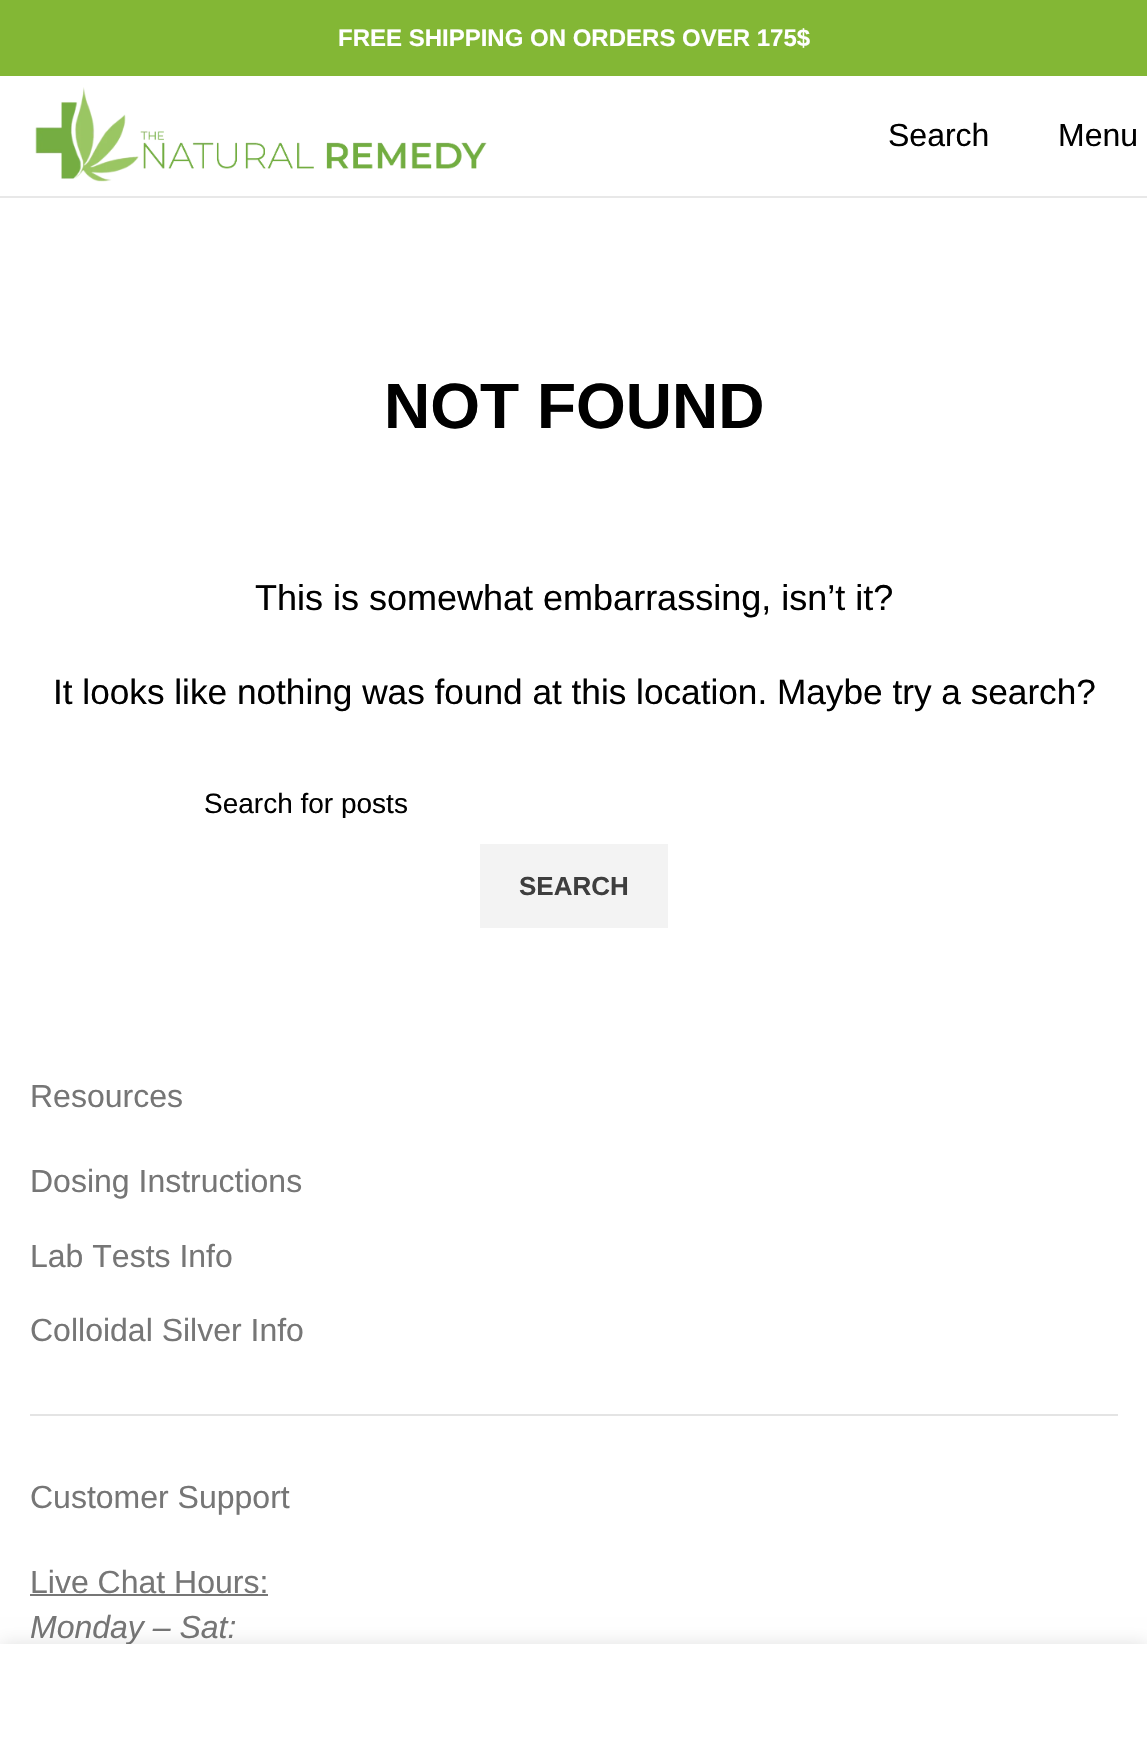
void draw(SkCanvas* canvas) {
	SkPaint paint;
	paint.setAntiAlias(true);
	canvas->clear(0xffffffff);
	paint.setColor(0xff83b735);
	canvas->drawRect(SkRect::MakeXYWH(0, 0, 1147, 76), paint);
	SkFont f1(fontMgr->matchFamilyStyle("Liberation Sans", SkFontStyle::Bold()), 24);
	f1.setSubpixel(true);
	paint.setColor(0xffffffff);
	canvas->drawString("FREE SHIPPING ON ORDERS OVER 175$", 338, 46, f1, paint);
	paint.setColor(0xffe8e8e8);
	canvas->drawRect(SkRect::MakeXYWH(0, 196, 1147, 2), paint);
	canvas->drawImageRect(SkImages::DeferredFromEncodedData(SkData::MakeFromFileName("img1.png")), SkRect::MakeXYWH(35, 87, 452, 95), SkSamplingOptions());
	SkFont f2(fontMgr->matchFamilyStyle("Liberation Sans", SkFontStyle::Normal()), 32);
	f2.setSubpixel(true);
	paint.setColor(0xff000000);
	canvas->drawString("Search", 888, 146, f2, paint);
	canvas->drawString("Menu", 1058, 146, f2, paint);
	SkFont f3(fontMgr->matchFamilyStyle("Liberation Sans", SkFontStyle::Bold()), 64);
	f3.setSubpixel(true);
	canvas->drawString("NOT FOUND", 384, 428, f3, paint);
	SkFont f4(fontMgr->matchFamilyStyle("Liberation Sans", SkFontStyle::Normal()), 36);
	f4.setSubpixel(true);
	canvas->drawString("This is somewhat embarrassing, isn’t it?", 255, 610, f4, paint);
	SkFont f5(fontMgr->matchFamilyStyle("Liberation Sans", SkFontStyle::Normal()), 35.2);
	f5.setSubpixel(true);
	canvas->drawString("It looks like nothing was found at this location. Maybe try a search?", 53, 704, f5, paint);
	canvas->save();
	canvas->clipRect(SkRect::MakeXYWH(204, 786, 740, 32));
	SkFont f6(fontMgr->matchFamilyStyle("Liberation Sans", SkFontStyle::Normal()), 28);
	f6.setSubpixel(true);
	canvas->drawString("Search for posts", 204, 813, f6, paint);
	canvas->restore();
	paint.setColor(0xfff3f3f3);
	canvas->drawRect(SkRect::MakeXYWH(480, 844, 188, 84), paint);
	SkFont f7(fontMgr->matchFamilyStyle("Liberation Sans", SkFontStyle::Bold()), 26);
	f7.setSubpixel(true);
	paint.setColor(0xff3e3e3e);
	canvas->drawString("SEARCH", 519, 895, f7, paint);
	paint.setColor(0xffe4e4e4);
	canvas->drawRect(SkRect::MakeXYWH(30, 1414, 1088, 2), paint);
	paint.setColor(0xff767676);
	canvas->drawString("Resources", 30, 1107, f2, paint);
	canvas->drawString("Dosing Instructions", 30, 1192, f2, paint);
	canvas->drawString("Lab Tests Info", 30, 1267, f2, paint);
	canvas->drawString("Colloidal Silver Info", 30, 1341, f2, paint);
	canvas->drawString("Customer Support", 30, 1508, f2, paint);
	canvas->drawString("Live Chat Hours:", 30, 1593, f2, paint);
	canvas->drawRect(SkRect::MakeXYWH(30, 1594, 238, 2), paint);
	SkFont f8(fontMgr->matchFamilyStyle("Liberation Sans", SkFontStyle::Italic()), 32);
	f8.setSubpixel(true);
	canvas->drawString("Monday – Sat:", 30, 1638, f8, paint);
	paint.setColor(0x1f000000);
	paint.setMaskFilter(SkMaskFilter::MakeBlur(kNormal_SkBlurStyle, 9));
	canvas->drawRect(SkRect::MakeXYWH(0, 1644, 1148, 110), paint);
	paint.setMaskFilter(nullptr);
	paint.setColor(0xffffffff);
	canvas->drawRect(SkRect::MakeXYWH(0, 1644, 1147, 110), paint);
}
